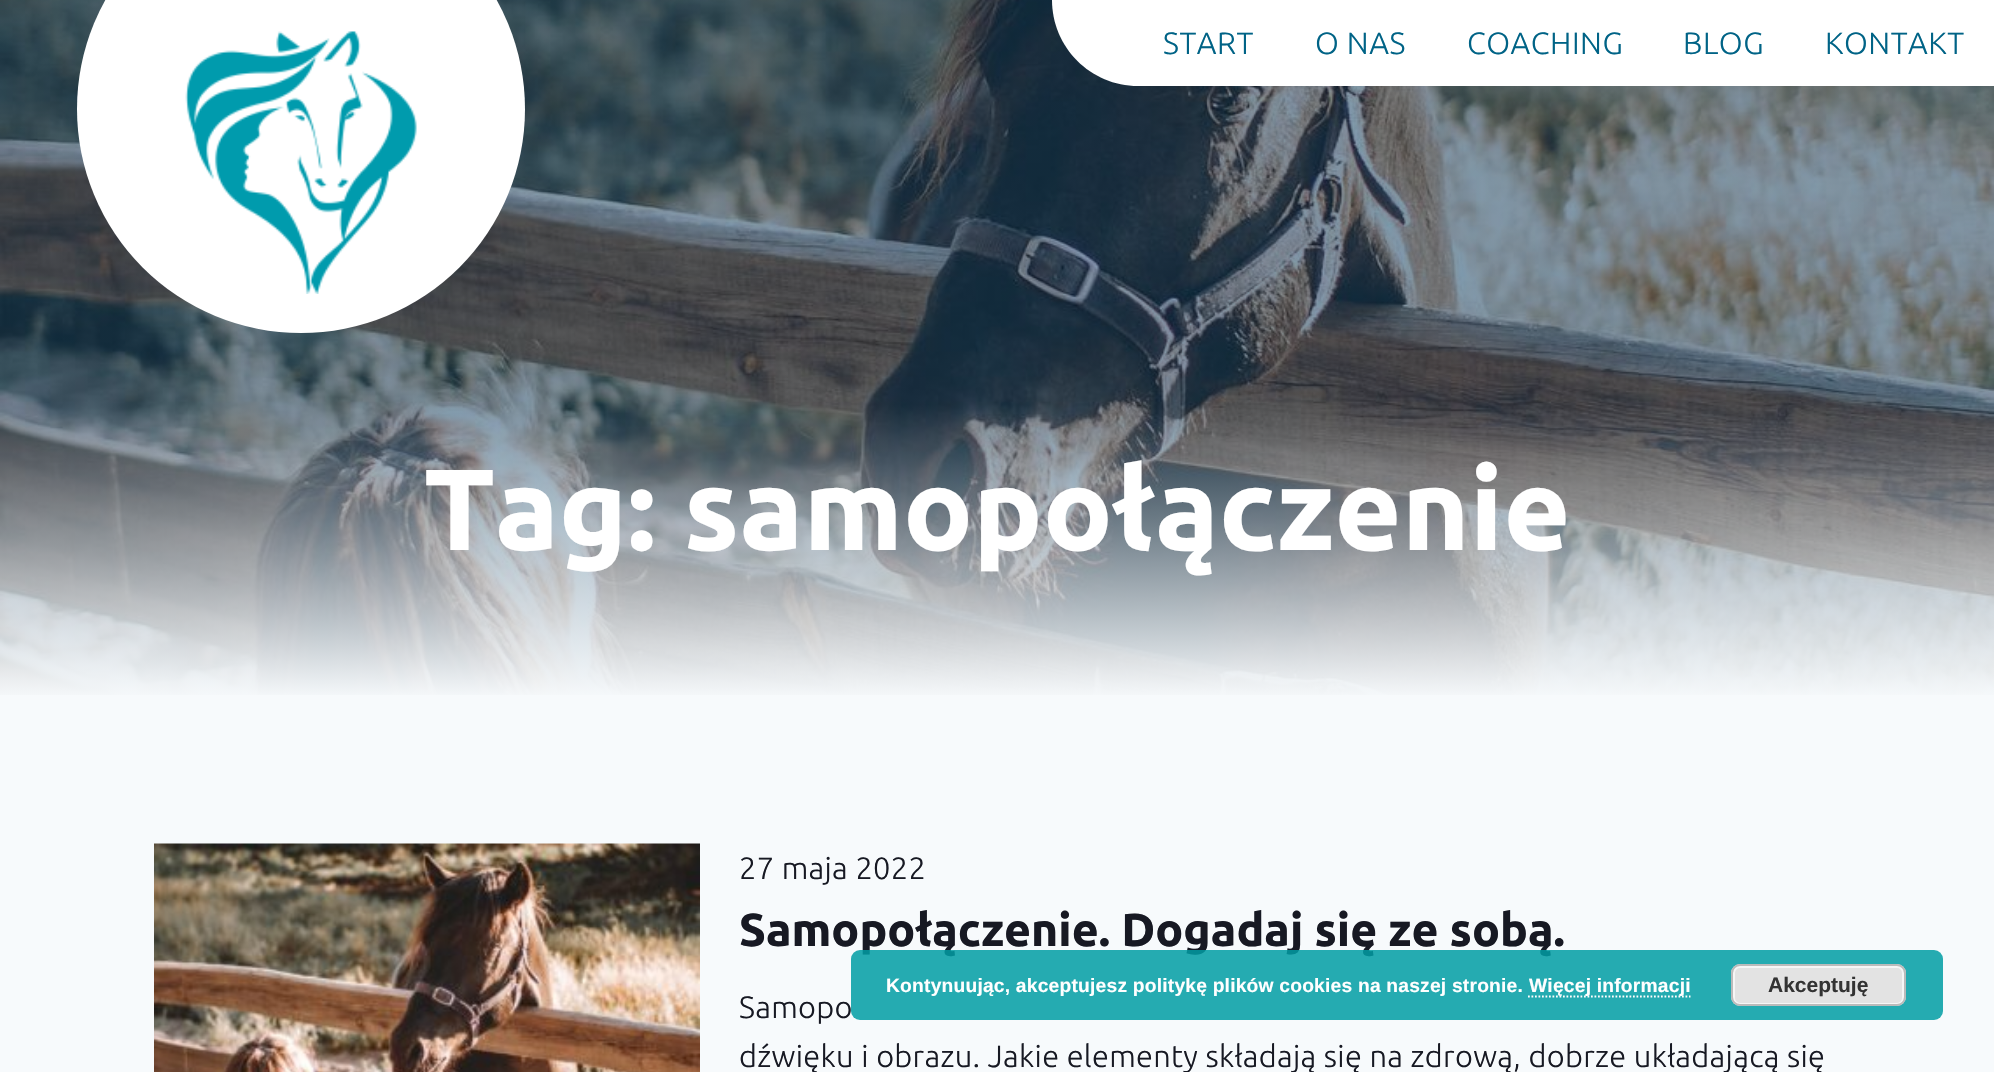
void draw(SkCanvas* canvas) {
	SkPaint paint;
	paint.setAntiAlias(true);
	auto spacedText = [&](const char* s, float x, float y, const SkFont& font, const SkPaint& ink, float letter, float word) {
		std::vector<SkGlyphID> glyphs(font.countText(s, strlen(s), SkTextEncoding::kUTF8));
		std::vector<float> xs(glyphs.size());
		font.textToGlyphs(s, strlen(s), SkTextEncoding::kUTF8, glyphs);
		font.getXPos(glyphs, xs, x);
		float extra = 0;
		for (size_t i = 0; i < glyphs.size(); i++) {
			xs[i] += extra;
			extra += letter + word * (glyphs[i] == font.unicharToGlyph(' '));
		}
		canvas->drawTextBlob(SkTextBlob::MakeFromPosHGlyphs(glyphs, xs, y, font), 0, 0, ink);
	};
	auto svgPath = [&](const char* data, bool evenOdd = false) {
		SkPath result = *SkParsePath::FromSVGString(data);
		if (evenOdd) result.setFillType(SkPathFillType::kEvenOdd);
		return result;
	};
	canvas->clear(0xfff7fafc);
	canvas->drawImageRect(SkImages::DeferredFromEncodedData(SkData::MakeFromFileName("img1.png")), SkRect::MakeXYWH(0, 0, 1994, 695), SkSamplingOptions());
	paint.setColor(0xffffffff);
	canvas->drawCircle(301, 109, 224, paint);
	canvas->drawImageRect(SkImages::DeferredFromEncodedData(SkData::MakeFromFileName("img2.png")), SkRect::MakeXYWH(185, 31, 232, 263), SkSamplingOptions());
	canvas->drawPath(svgPath("M1052 0H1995V86H1138C1090.5 86 1052 47.5 1052 0Z"), paint);
	SkFont f1(fontMgr->matchFamilyStyle("Ubuntu", SkFontStyle(300, SkFontStyle::kNormal_Width, SkFontStyle::kUpright_Slant)), 30.8);
	f1.setSubpixel(true);
	paint.setColor(0xff006386);
	spacedText("START", 1163, 54, f1, paint, 0.5, 0);
	spacedText("O NAS", 1315, 54, f1, paint, 0.5, 0);
	spacedText("COACHING", 1467, 54, f1, paint, 0.5, 0);
	spacedText("BLOG", 1683, 54, f1, paint, 0.5, 0);
	spacedText("KONTAKT", 1825, 54, f1, paint, 0.5, 0);
	SkFont f2(fontMgr->matchFamilyStyle("Ubuntu", SkFontStyle::Bold()), 115.5);
	f2.setSubpixel(true);
	paint.setColor(0xffffffff);
	canvas->drawString("Tag: samopołączenie", 424, 550, f2, paint);
	canvas->drawImageRect(SkImages::DeferredFromEncodedData(SkData::MakeFromFileName("img3.png")), SkRect::MakeXYWH(154, 843, 546, 229), SkSamplingOptions());
	paint.setColor(0xff171923);
	spacedText("27 maja 2022", 739, 879, f1, paint, 0.3, 0);
	SkFont f3(fontMgr->matchFamilyStyle("Ubuntu", SkFontStyle::Bold()), 46.25);
	f3.setSubpixel(true);
	canvas->drawString("Samopołączenie. Dogadaj się ze sobą.", 739, 946, f3, paint);
	spacedText("Samopo", 739, 1018, f1, paint, 0.3, 0);
	spacedText("dźwięku i obrazu. Jakie elementy składają się na zdrową, dobrze układającą się", 739, 1067, f1, paint, 0.3, 0);
	paint.setColor(0xd9009ca3);
	canvas->drawRoundRect(SkRect::MakeXYWH(851, 950, 1092, 70), 9, 9, paint);
	SkFont f4(fontMgr->matchFamilyStyle("Liberation Sans", SkFontStyle::Bold()), 19.25);
	f4.setSubpixel(true);
	paint.setColor(0xffffffff);
	spacedText("Kontynuując, akceptujesz politykę plików cookies na naszej stronie.", 886, 992, f4, paint, 0.2, 0);
	paint.setStroke(true);
	paint.setStrokeWidth(1.8);
	paint.setPathEffect(SkDashPathEffect::Make({{1.75f, 1.75f}}, 0));
	canvas->drawPath(svgPath("M1528 996.5H1690.5"), paint);
	paint.setPathEffect(nullptr);
	paint.setStroke(false);
	spacedText("Więcej informacji", 1529, 992, f4, paint, 0.2, 0);
	paint.setColor(0xffe3e3e3);
	canvas->drawRoundRect(SkRect::MakeXYWH(1731, 964, 175, 42), 9, 9, paint);
	paint.setStroke(true);
	paint.setStrokeWidth(2);
	paint.setColor(0xfff6f6f6);
	canvas->drawRoundRect(SkRect::MakeXYWH(1734, 967, 169, 37), 6, 6, paint);
	paint.setColor(0xffbbbbbb);
	canvas->drawRoundRect(SkRect::MakeXYWH(1732, 965, 173, 40), 8, 8, paint);
	SkFont f5(fontMgr->matchFamilyStyle("Liberation Sans", SkFontStyle::Bold()), 21);
	f5.setSubpixel(true);
	paint.setStroke(false);
	paint.setColor(0xff333333);
	canvas->drawString("Akceptuję", 1768, 992, f5, paint);
}
